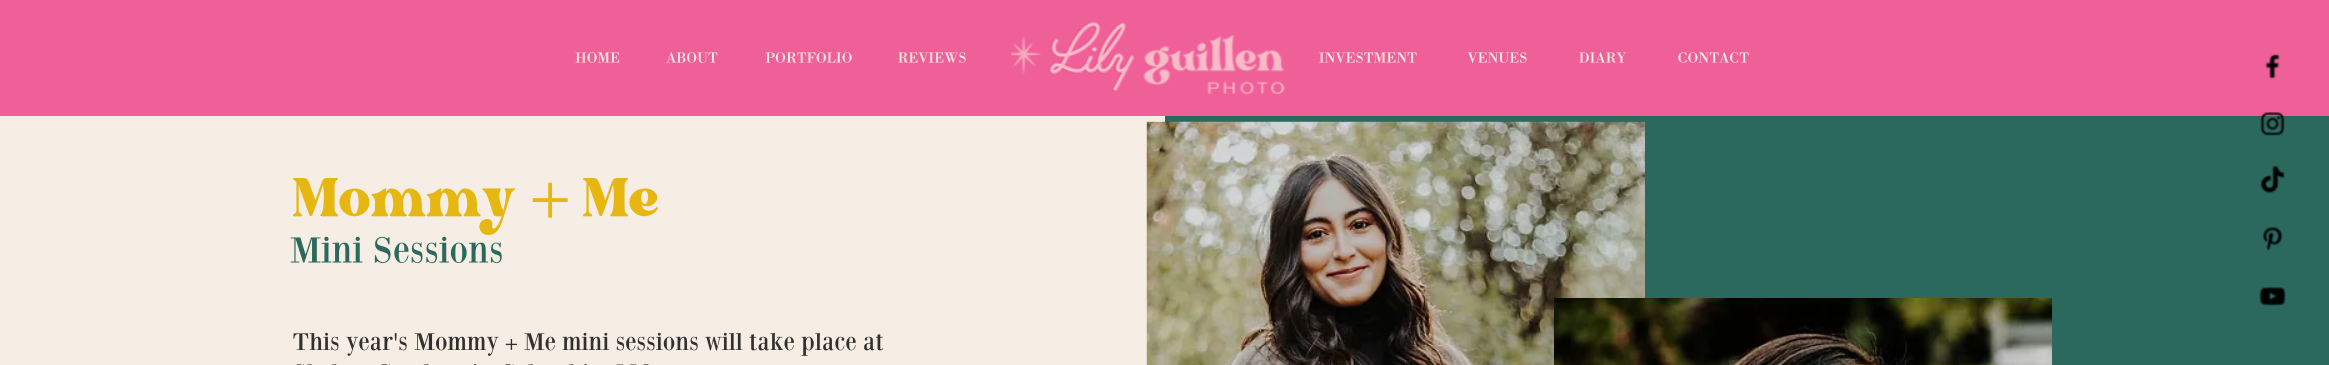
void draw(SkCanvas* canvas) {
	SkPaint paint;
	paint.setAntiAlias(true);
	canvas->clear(0xfff6eee5);
	paint.setColor(0xfff06098);
	canvas->drawRect(SkRect::MakeXYWH(0, 0, 2329, 116), paint);
	canvas->drawImageRect(SkImages::DeferredFromEncodedData(SkData::MakeFromFileName("img1.png")), SkRect::MakeXYWH(575, 52, 45, 11), SkSamplingOptions());
	canvas->drawImageRect(SkImages::DeferredFromEncodedData(SkData::MakeFromFileName("img2.png")), SkRect::MakeXYWH(666, 52, 52, 11), SkSamplingOptions());
	canvas->drawImageRect(SkImages::DeferredFromEncodedData(SkData::MakeFromFileName("img3.png")), SkRect::MakeXYWH(765, 52, 87, 11), SkSamplingOptions());
	canvas->drawImageRect(SkImages::DeferredFromEncodedData(SkData::MakeFromFileName("img4.png")), SkRect::MakeXYWH(898, 52, 68, 11), SkSamplingOptions());
	canvas->drawImageRect(SkImages::DeferredFromEncodedData(SkData::MakeFromFileName("img5.png")), SkRect::MakeXYWH(1011, 22, 274, 73), SkSamplingOptions());
	canvas->drawImageRect(SkImages::DeferredFromEncodedData(SkData::MakeFromFileName("img6.png")), SkRect::MakeXYWH(1319, 52, 98, 11), SkSamplingOptions());
	canvas->drawImageRect(SkImages::DeferredFromEncodedData(SkData::MakeFromFileName("img7.png")), SkRect::MakeXYWH(1467, 52, 60, 11), SkSamplingOptions());
	canvas->drawImageRect(SkImages::DeferredFromEncodedData(SkData::MakeFromFileName("img8.png")), SkRect::MakeXYWH(1579, 52, 48, 11), SkSamplingOptions());
	canvas->drawImageRect(SkImages::DeferredFromEncodedData(SkData::MakeFromFileName("img9.png")), SkRect::MakeXYWH(1678, 52, 71, 11), SkSamplingOptions());
	SkFont f1(fontMgr->matchFamilyStyle("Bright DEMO", SkFontStyle::Normal()), 75);
	f1.setSubpixel(true);
	paint.setColor(0xffe6b711);
	canvas->drawString("Mommy", 293, 225, f1, paint);
	SkFont f2(fontMgr->matchFamilyStyle("Liberation Serif", SkFontStyle::Normal()), 75);
	f2.setSubpixel(true);
	canvas->drawString("+", 529, 225, f2, paint);
	canvas->drawString("Me", 583, 225, f1, paint);
	canvas->drawImageRect(SkImages::DeferredFromEncodedData(SkData::MakeFromFileName("img10.png")), SkRect::MakeXYWH(290, 236, 212, 28), SkSamplingOptions());
	canvas->drawImageRect(SkImages::DeferredFromEncodedData(SkData::MakeFromFileName("img11.png")), SkRect::MakeXYWH(293, 332, 591, 24), SkSamplingOptions());
	canvas->drawImageRect(SkImages::DeferredFromEncodedData(SkData::MakeFromFileName("img12.png")), SkRect::MakeXYWH(296, 364, 353, 1), SkSamplingOptions());
	paint.setColor(0xff2b685d);
	canvas->drawRect(SkRect::MakeXYWH(1165, 116, 1164, 249), paint);
	canvas->drawImageRect(SkImages::DeferredFromEncodedData(SkData::MakeFromFileName("img13.png")), SkRect::MakeXYWH(1146, 121, 499, 244), SkSamplingOptions());
	canvas->drawImageRect(SkImages::DeferredFromEncodedData(SkData::MakeFromFileName("img14.png")), SkRect::MakeXYWH(1554, 298, 499, 67), SkSamplingOptions());
	canvas->drawImageRect(SkImages::DeferredFromEncodedData(SkData::MakeFromFileName("img15.png")), SkRect::MakeXYWH(2265, 54, 15, 25), SkSamplingOptions());
	canvas->drawImageRect(SkImages::DeferredFromEncodedData(SkData::MakeFromFileName("img16.png")), SkRect::MakeXYWH(2260, 112, 25, 24), SkSamplingOptions());
	canvas->drawImageRect(SkImages::DeferredFromEncodedData(SkData::MakeFromFileName("img17.png")), SkRect::MakeXYWH(2260, 166, 25, 28), SkSamplingOptions());
	canvas->drawImageRect(SkImages::DeferredFromEncodedData(SkData::MakeFromFileName("img18.png")), SkRect::MakeXYWH(2262, 227, 21, 24), SkSamplingOptions());
	canvas->drawImageRect(SkImages::DeferredFromEncodedData(SkData::MakeFromFileName("img19.png")), SkRect::MakeXYWH(2259, 287, 27, 19), SkSamplingOptions());
}
